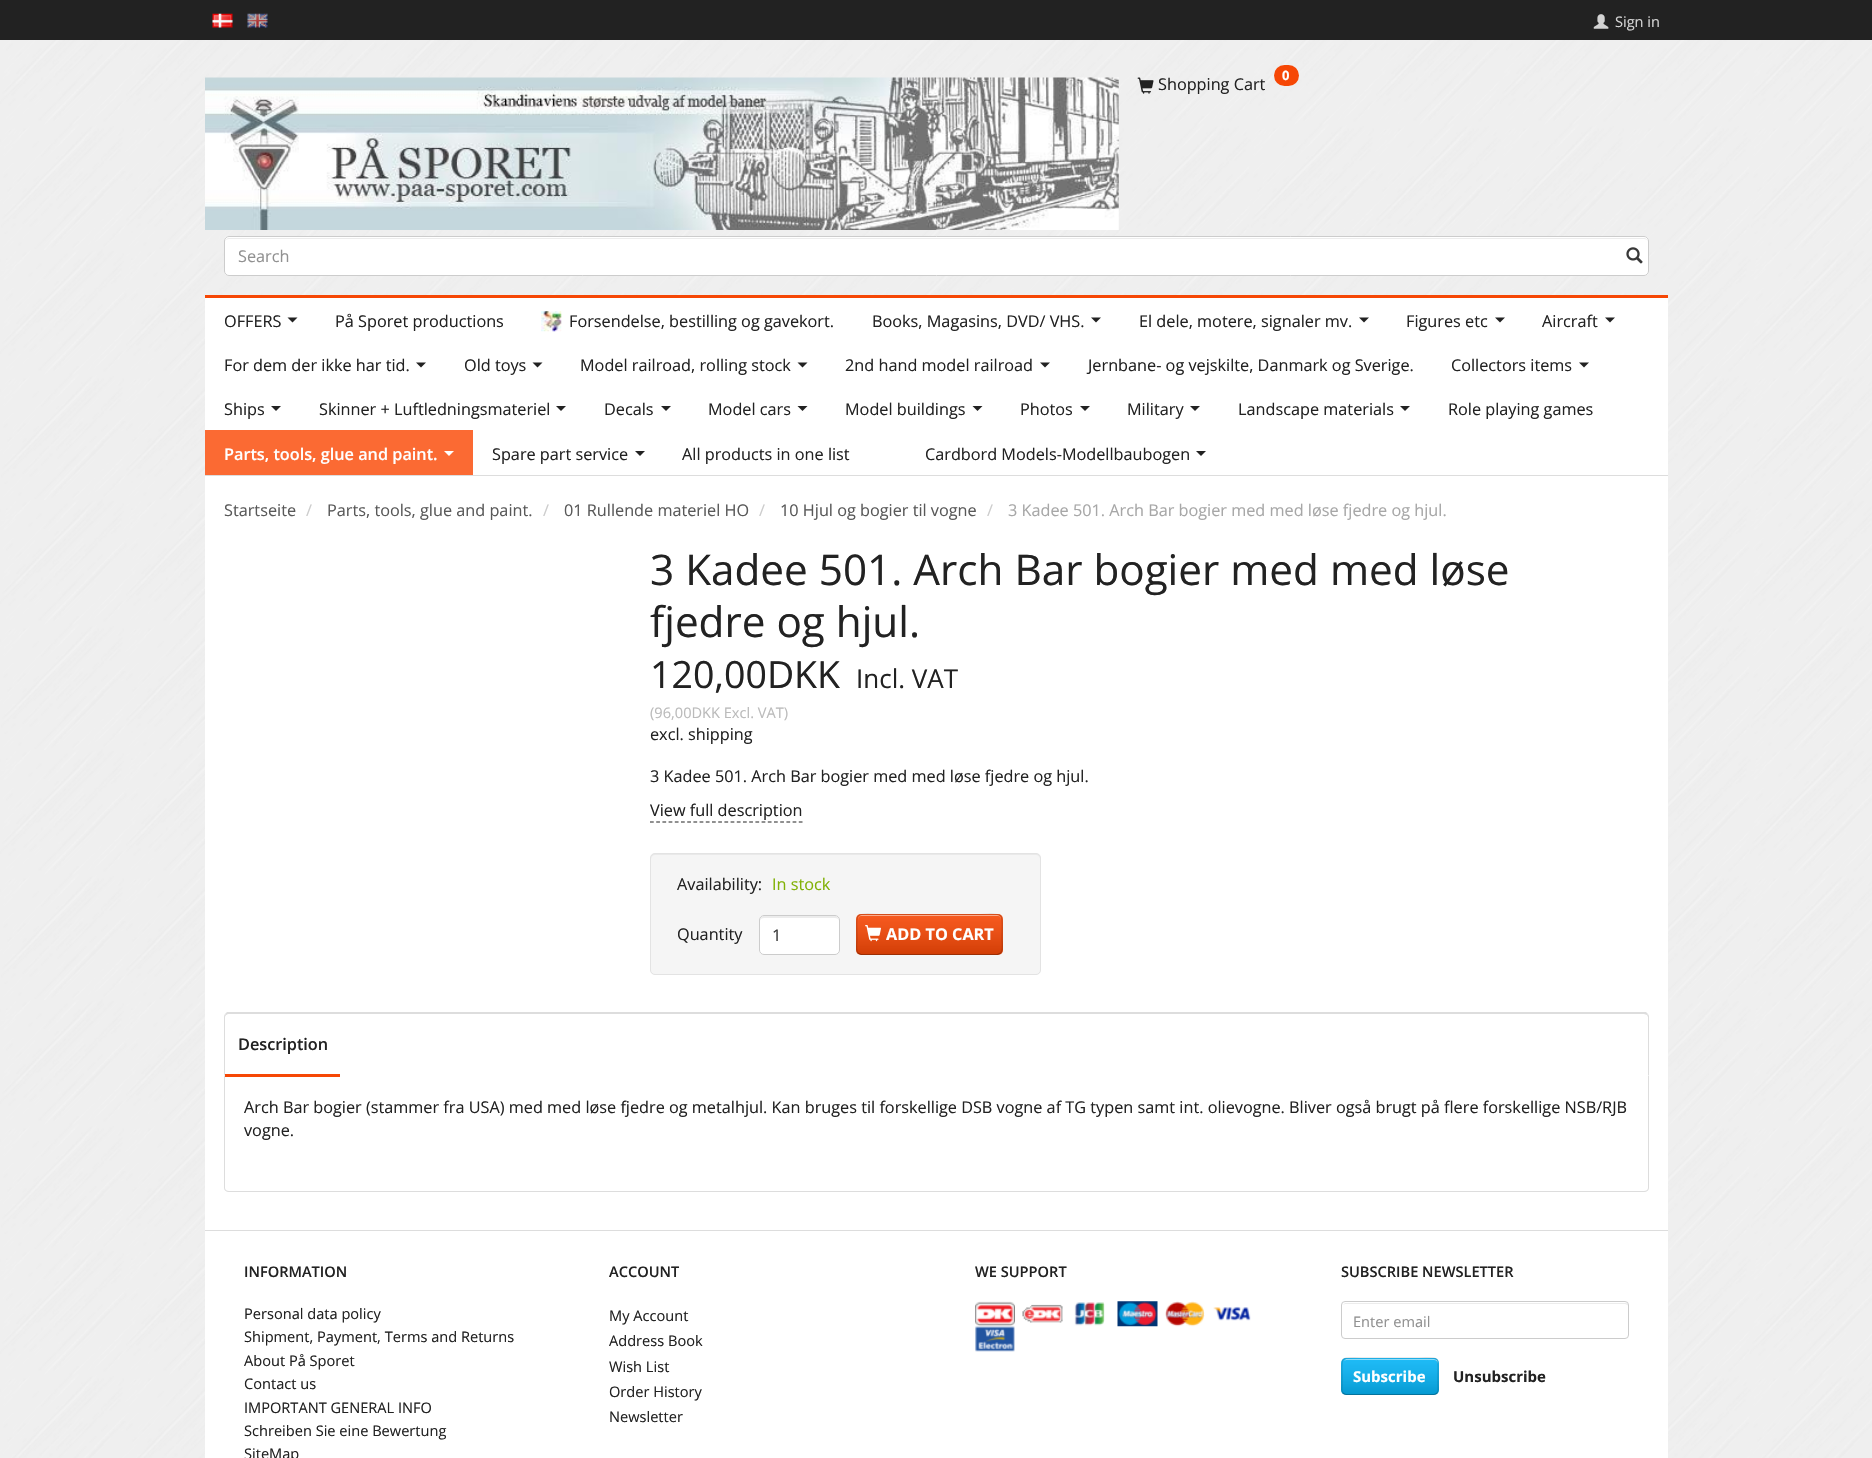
void draw(SkCanvas* canvas) {
	SkPaint paint;
	paint.setAntiAlias(true);
	auto svgPath = [&](const char* data, bool evenOdd = false) {
		SkPath result = *SkParsePath::FromSVGString(data);
		if (evenOdd) result.setFillType(SkPathFillType::kEvenOdd);
		return result;
	};
	canvas->clear(0xffffffff);
	canvas->drawImageRect(SkImages::DeferredFromEncodedData(SkData::MakeFromFileName("img1.png")), SkRect::MakeXYWH(0, 40, 1872, 1418), SkSamplingOptions());
	paint.setColor(0xff222222);
	canvas->drawRect(SkRect::MakeXYWH(0, 0, 1872, 40), paint);
	canvas->drawImageRect(SkImages::DeferredFromEncodedData(SkData::MakeFromFileName("img2.png")), SkRect::MakeXYWH(212, 13, 21, 15), SkSamplingOptions());
	canvas->drawImageRect(SkImages::DeferredFromEncodedData(SkData::MakeFromFileName("img3.png")), SkRect::MakeXYWH(247, 13, 21, 15), SkSamplingOptions());
	canvas->drawImageRect(SkImages::DeferredFromEncodedData(SkData::MakeFromFileName("img4.png")), SkRect::MakeXYWH(1593, 14, 16, 15), SkSamplingOptions());
	SkFont f1(fontMgr->matchFamilyStyle("Open Sans", SkFontStyle::Normal()), 14.6);
	f1.setSubpixel(true);
	paint.setColor(0xffd3d3d3);
	canvas->drawString("Sign in", 1615, 27, f1, paint);
	canvas->drawImageRect(SkImages::DeferredFromEncodedData(SkData::MakeFromFileName("img5.png")), SkRect::MakeXYWH(205, 77, 914, 153), SkSamplingOptions());
	paint.setColor(0xfff64705);
	canvas->drawRoundRect(SkRect::MakeXYWH(1274, 65, 25, 21), 10.5, 10.5, paint);
	SkFont f2(fontMgr->matchFamilyStyle("Open Sans", SkFontStyle::Bold()), 13);
	f2.setSubpixel(true);
	paint.setColor(0xffffffff);
	canvas->drawString("0", 1282, 80, f2, paint);
	canvas->drawImageRect(SkImages::DeferredFromEncodedData(SkData::MakeFromFileName("img6.png")), SkRect::MakeXYWH(1137, 77, 17, 17), SkSamplingOptions());
	SkFont f3(fontMgr->matchFamilyStyle("Open Sans", SkFontStyle::Normal()), 16.25);
	f3.setSubpixel(true);
	paint.setColor(0xff222222);
	canvas->drawString("Shopping Cart", 1158, 90, f3, paint);
	paint.setColor(0xffffffff);
	canvas->drawRoundRect(SkRect::MakeXYWH(224, 236, 1425, 40), 5, 5, paint);
	paint.setColor(0xffececec);
	canvas->drawPath(svgPath("M229 239H1644C1646 239 1648 240 1648 242C1648 240 1646 238 1644 238H229C227 238 225 240 225 242C225 240 227 239 229 239Z"), paint);
	paint.setStroke(true);
	paint.setStrokeWidth(1);
	paint.setColor(0xffcccccc);
	canvas->drawRoundRect(SkRect::MakeXYWH(224.5, 236.5, 1424, 39), 4.5, 4.5, paint);
	paint.setStroke(false);
	paint.setColor(0xff919191);
	canvas->drawString("Search", 238, 262, f3, paint);
	canvas->drawImageRect(SkImages::DeferredFromEncodedData(SkData::MakeFromFileName("img7.png")), SkRect::MakeXYWH(1626, 247, 17, 17), SkSamplingOptions());
	paint.setColor(0xffffffff);
	canvas->drawRect(SkRect::MakeXYWH(205, 298, 1463, 177), paint);
	paint.setColor(0xfff64705);
	canvas->drawRect(SkRect::MakeXYWH(205, 295, 1463, 3), paint);
	paint.setColor(0xff222222);
	canvas->drawString("OFFERS", 224, 327, f3, paint);
	canvas->drawPath(svgPath("M287.5 317.5H297.5L292.5 322.5Z"), paint);
	canvas->drawString("På Sporet productions", 335, 327, f3, paint);
	canvas->drawImageRect(SkImages::DeferredFromEncodedData(SkData::MakeFromFileName("img8.png")), SkRect::MakeXYWH(541, 311, 21, 21), SkSamplingOptions());
	canvas->drawString("Forsendelse, bestilling og gavekort.", 569, 327, f3, paint);
	canvas->drawString("Books, Magasins, DVD/ VHS.", 872, 327, f3, paint);
	canvas->drawPath(svgPath("M1091 317.5H1101L1096 322.5Z"), paint);
	canvas->drawString("El dele, motere, signaler mv.", 1139, 327, f3, paint);
	canvas->drawPath(svgPath("M1359 317.5H1369L1364 322.5Z"), paint);
	canvas->drawString("Figures etc", 1406, 327, f3, paint);
	canvas->drawPath(svgPath("M1495 317.5H1505L1500 322.5Z"), paint);
	canvas->drawString("Aircraft", 1542, 327, f3, paint);
	canvas->drawPath(svgPath("M1605 317.5H1615L1610 322.5Z"), paint);
	canvas->drawString("For dem der ikke har tid.", 224, 371, f3, paint);
	canvas->drawPath(svgPath("M416 362.5H426L421 367.5Z"), paint);
	canvas->drawString("Old toys", 464, 371, f3, paint);
	canvas->drawPath(svgPath("M532.5 362.5H542.5L537.5 367.5Z"), paint);
	canvas->drawString("Model railroad, rolling stock", 580, 371, f3, paint);
	canvas->drawPath(svgPath("M797.5 362.5H807.5L802.5 367.5Z"), paint);
	canvas->drawString("2nd hand model railroad", 845, 371, f3, paint);
	canvas->drawPath(svgPath("M1040 362.5H1050L1045 367.5Z"), paint);
	canvas->drawString("Jernbane- og vejskilte, Danmark og Sverige.", 1088, 371, f3, paint);
	canvas->drawString("Collectors items", 1451, 371, f3, paint);
	canvas->drawPath(svgPath("M1579 362.5H1589L1584 367.5Z"), paint);
	canvas->drawString("Ships", 224, 415, f3, paint);
	canvas->drawPath(svgPath("M271 406H281L276 411Z"), paint);
	canvas->drawString("Skinner + Luftledningsmateriel", 319, 415, f3, paint);
	canvas->drawPath(svgPath("M556 406H566L561 411Z"), paint);
	canvas->drawString("Decals", 604, 415, f3, paint);
	canvas->drawPath(svgPath("M661 406H671L666 411Z"), paint);
	canvas->drawString("Model cars", 708, 415, f3, paint);
	canvas->drawPath(svgPath("M797.5 406H807.5L802.5 411Z"), paint);
	canvas->drawString("Model buildings", 845, 415, f3, paint);
	canvas->drawPath(svgPath("M972.5 406H982.5L977.5 411Z"), paint);
	canvas->drawString("Photos", 1020, 415, f3, paint);
	canvas->drawPath(svgPath("M1080 406H1090L1085 411Z"), paint);
	canvas->drawString("Military", 1127, 415, f3, paint);
	canvas->drawPath(svgPath("M1190 406H1200L1195 411Z"), paint);
	canvas->drawString("Landscape materials", 1238, 415, f3, paint);
	canvas->drawPath(svgPath("M1400 406H1410L1405 411Z"), paint);
	canvas->drawString("Role playing games", 1448, 415, f3, paint);
	paint.setColor(0xfffb6a33);
	canvas->drawRect(SkRect::MakeXYWH(205, 430, 268, 45), paint);
	SkFont f4(fontMgr->matchFamilyStyle("Open Sans", SkFontStyle(600, SkFontStyle::kNormal_Width, SkFontStyle::kUpright_Slant)), 16.25);
	f4.setSubpixel(true);
	paint.setColor(0xffffffff);
	canvas->drawString("Parts, tools, glue and paint.", 224, 460, f4, paint);
	canvas->drawPath(svgPath("M444 451H454L449 456Z"), paint);
	paint.setColor(0xff222222);
	canvas->drawString("Spare part service", 492, 460, f3, paint);
	canvas->drawPath(svgPath("M635 451H645L640 456Z"), paint);
	canvas->drawString("All products in one list", 682, 460, f3, paint);
	canvas->drawString("Cardbord Models-Modellbaubogen", 925, 460, f3, paint);
	canvas->drawPath(svgPath("M1196 451H1206L1201 456Z"), paint);
	paint.setColor(0xffdddddd);
	canvas->drawRect(SkRect::MakeXYWH(205, 475, 1463, 1), paint);
	paint.setColor(0xffffffff);
	canvas->drawRect(SkRect::MakeXYWH(205, 476, 1463, 754), paint);
	paint.setColor(0xff595959);
	canvas->drawString("Startseite", 224, 516, f3, paint);
	paint.setColor(0xffcccccc);
	canvas->drawString("/", 306, 516, f3, paint);
	paint.setColor(0xff595959);
	canvas->drawString("Parts, tools, glue and paint.", 327, 516, f3, paint);
	paint.setColor(0xffcccccc);
	canvas->drawString("/", 543, 516, f3, paint);
	paint.setColor(0xff595959);
	canvas->drawString("01 Rullende materiel HO", 564, 516, f3, paint);
	paint.setColor(0xffcccccc);
	canvas->drawString("/", 759, 516, f3, paint);
	paint.setColor(0xff595959);
	canvas->drawString("10 Hjul og bogier til vogne", 780, 516, f3, paint);
	paint.setColor(0xffcccccc);
	canvas->drawString("/", 987, 516, f3, paint);
	paint.setColor(0xffa7a7a7);
	canvas->drawString("3 Kadee 501. Arch Bar bogier med med løse fjedre og hjul.", 1008, 516, f3, paint);
	SkFont f5(fontMgr->matchFamilyStyle("Open Sans", SkFontStyle::Normal()), 42.25);
	f5.setSubpixel(true);
	paint.setColor(0xff222222);
	canvas->drawString("3 Kadee 501. Arch Bar bogier med med løse", 650, 585, f5, paint);
	canvas->drawString("fjedre og hjul.", 650, 637, f5, paint);
	SkFont f6(fontMgr->matchFamilyStyle("Open Sans", SkFontStyle::Normal()), 37.5);
	f6.setSubpixel(true);
	canvas->drawString("120,00DKK", 650, 688, f6, paint);
	SkFont f7(fontMgr->matchFamilyStyle("Open Sans", SkFontStyle::Normal()), 26);
	f7.setSubpixel(true);
	canvas->drawString("Incl. VAT", 856, 688, f7, paint);
	paint.setColor(0xffbbbbbb);
	canvas->drawString("(96,00DKK Excl. VAT)", 650, 718, f1, paint);
	paint.setColor(0xff222222);
	canvas->drawString("excl. shipping", 650, 740, f3, paint);
	canvas->drawString("3 Kadee 501. Arch Bar bogier med med løse fjedre og hjul.", 650, 782, f3, paint);
	canvas->drawString("View full description", 650, 816, f3, paint);
	paint.setStroke(true);
	paint.setStrokeWidth(1.2);
	paint.setPathEffect(SkDashPathEffect::Make({{3.75f, 2.45f}}, 0));
	canvas->drawPath(svgPath("M650 822H802.5"), paint);
	paint.setPathEffect(nullptr);
	paint.setStroke(false);
	paint.setColor(0xfff5f5f5);
	canvas->drawRoundRect(SkRect::MakeXYWH(650, 853, 391, 122), 5, 5, paint);
	paint.setColor(0xffe9e9e9);
	canvas->drawPath(svgPath("M655 855H1036C1038 855 1040 857 1040 859C1040 856 1039 854 1036 854H655C652 854 651 856 651 859C651 857 653 855 655 855Z"), paint);
	paint.setStroke(true);
	paint.setStrokeWidth(1);
	paint.setColor(0xffe3e3e3);
	canvas->drawRoundRect(SkRect::MakeXYWH(650.5, 853.5, 390, 121), 4.5, 4.5, paint);
	paint.setStroke(false);
	paint.setColor(0xff222222);
	canvas->drawString("Availability:", 677, 890, f3, paint);
	paint.setColor(0xff81b106);
	canvas->drawString("In stock", 772, 890, f3, paint);
	paint.setColor(0xff222222);
	canvas->drawString("Quantity", 677, 940, f3, paint);
	paint.setColor(0xffffffff);
	canvas->drawRoundRect(SkRect::MakeXYWH(759, 915, 81, 40), 5, 5, paint);
	paint.setColor(0xffececec);
	canvas->drawPath(svgPath("M764 918H835C837 918 839 919 839 921C839 913 828 916 823 916H776C771 916 760 913 760 921C760 919 762 918 764 918Z"), paint);
	paint.setStroke(true);
	paint.setColor(0xffcccccc);
	canvas->drawRoundRect(SkRect::MakeXYWH(759.5, 915.5, 80, 39), 4.5, 4.5, paint);
	paint.setStroke(false);
	paint.setColor(0xff383838);
	canvas->drawString("1", 772, 941, f3, paint);
	paint.setColor(0xfff64705);
	canvas->drawRoundRect(SkRect::MakeXYWH(856, 914, 147, 41), 5, 5, paint);
	{
		const SkColor colors[] = {0x1affffff, 0x26000000};
		const float stops[] = {0, 1};
		const SkPoint ends[] = {{929, 914}, {929, 955}};
		paint.setShader(SkGradientShader::MakeLinear(ends, colors, stops, 2, SkTileMode::kClamp));
		paint.setAlpha(255);
	}
	canvas->drawRoundRect(SkRect::MakeXYWH(856, 914, 147, 41), 5, 5, paint);
	paint.setShader(nullptr);
	paint.setColor(0xfffaac8e);
	canvas->drawPath(svgPath("M861 916H998C1000 916 1001 918 1001 920V919C1001 917 999 915 997 915H862C860 915 858 917 858 919V920C858 918 859 916 861 916Z"), paint);
	paint.setStroke(true);
	paint.setStrokeWidth(1.2);
	paint.setColor(0x40000000);
	canvas->drawPath(svgPath("M1000.5 953L997.5 954.5H861L858 953"), paint);
	paint.setColor(0x26000000);
	canvas->drawPath(svgPath("M858 953C855.5 950.5 857 942.5 857 939.5C857 909 851.5 914.5 884 914.5H975C1007 914.5 1002 909 1002 939.5C1002 942.5 1003.5 950.5 1000.5 953"), paint);
	canvas->drawImageRect(SkImages::DeferredFromEncodedData(SkData::MakeFromFileName("img9.png")), SkRect::MakeXYWH(865, 925, 16, 17), SkSamplingOptions());
	SkFont f8(fontMgr->matchFamilyStyle("Open Sans", SkFontStyle::Bold()), 16.25);
	f8.setSubpixel(true);
	paint.setStroke(false);
	paint.setColor(0xffffffff);
	canvas->drawString("ADD TO CART", 886, 940, f8, paint);
	paint.setColor(0xffdddddd);
	canvas->drawPath(svgPath("M229 1014L226 1015L225 1014L227 1012H1646L1648 1014L1647 1015L1644 1014Z"), paint);
	canvas->drawPath(svgPath("M1649 1076L1648 1075V1017L1647 1015L1648 1014L1649 1016Z"), paint);
	canvas->drawPath(svgPath("M224 1076L225 1075V1017L226 1015L225 1014C224 1015 224 1017 224 1018Z"), paint);
	paint.setColor(0xffffffff);
	canvas->drawPath(svgPath("M230 1014H340V1076H225V1019C225 1016 227 1014 230 1014Z"), paint);
	paint.setColor(0xffdddddd);
	canvas->drawPath(svgPath("M224 1076H1649V1188C1649 1190 1647 1192 1644 1192H229C226 1192 224 1190 224 1188ZM225 1076H1648V1188C1648 1190 1646 1191 1644 1191H229C227 1191 225 1190 225 1188Z", true), paint);
	paint.setColor(0xfff64705);
	canvas->drawRect(SkRect::MakeXYWH(225, 1074, 115, 3), paint);
	paint.setColor(0xff222222);
	canvas->drawString("Description", 238, 1050, f4, paint);
	canvas->drawString("Arch Bar bogier (stammer fra USA) med med løse fjedre og metalhjul. Kan bruges til forskellige DSB vogne af TG typen samt int. olievogne. Bliver også brugt på flere forskellige NSB/RJB", 244, 1113, f3, paint);
	canvas->drawString("vogne.", 244, 1136, f3, paint);
	paint.setColor(0xffdddddd);
	canvas->drawRect(SkRect::MakeXYWH(205, 1230, 1463, 1), paint);
	paint.setColor(0xffffffff);
	canvas->drawRect(SkRect::MakeXYWH(205, 1231, 1463, 227), paint);
	SkFont f9(fontMgr->matchFamilyStyle("Open Sans", SkFontStyle(600, SkFontStyle::kNormal_Width, SkFontStyle::kUpright_Slant)), 14.6);
	f9.setSubpixel(true);
	paint.setColor(0xff222222);
	canvas->drawString("INFORMATION", 244, 1277, f9, paint);
	canvas->drawString("Personal data policy", 244, 1319, f1, paint);
	canvas->drawString("Shipment, Payment, Terms and Returns", 244, 1342, f1, paint);
	canvas->drawString("About På Sporet", 244, 1366, f1, paint);
	canvas->drawString("Contact us", 244, 1389, f1, paint);
	canvas->drawString("IMPORTANT GENERAL INFO", 244, 1413, f1, paint);
	canvas->drawString("Schreiben Sie eine Bewertung", 244, 1436, f1, paint);
	canvas->drawString("SiteMap", 244, 1459, f1, paint);
	canvas->drawString("ACCOUNT", 609, 1277, f9, paint);
	canvas->drawString("My Account", 609, 1321, f1, paint);
	canvas->drawString("Address Book", 609, 1346, f1, paint);
	canvas->drawString("Wish List", 609, 1372, f1, paint);
	canvas->drawString("Order History", 609, 1397, f1, paint);
	canvas->drawString("Newsletter", 609, 1422, f1, paint);
	canvas->drawString("WE SUPPORT", 975, 1277, f9, paint);
	canvas->drawImageRect(SkImages::DeferredFromEncodedData(SkData::MakeFromFileName("img10.png")), SkRect::MakeXYWH(975, 1301, 40, 26), SkSamplingOptions());
	canvas->drawImageRect(SkImages::DeferredFromEncodedData(SkData::MakeFromFileName("img11.png")), SkRect::MakeXYWH(1022, 1304, 41, 19), SkSamplingOptions());
	canvas->drawImageRect(SkImages::DeferredFromEncodedData(SkData::MakeFromFileName("img12.png")), SkRect::MakeXYWH(1074, 1302, 31, 24), SkSamplingOptions());
	canvas->drawImageRect(SkImages::DeferredFromEncodedData(SkData::MakeFromFileName("img13.png")), SkRect::MakeXYWH(1117, 1301, 41, 26), SkSamplingOptions());
	canvas->drawImageRect(SkImages::DeferredFromEncodedData(SkData::MakeFromFileName("img14.png")), SkRect::MakeXYWH(1165, 1301, 40, 26), SkSamplingOptions());
	canvas->drawImageRect(SkImages::DeferredFromEncodedData(SkData::MakeFromFileName("img15.png")), SkRect::MakeXYWH(1213, 1306, 38, 15), SkSamplingOptions());
	canvas->drawImageRect(SkImages::DeferredFromEncodedData(SkData::MakeFromFileName("img16.png")), SkRect::MakeXYWH(975, 1326, 40, 26), SkSamplingOptions());
	canvas->drawString("SUBSCRIBE NEWSLETTER", 1341, 1277, f9, paint);
	paint.setColor(0xffececec);
	canvas->drawPath(svgPath("M1345 1304H1625C1626 1304 1628 1305 1628 1306C1628 1305 1628 1304 1626 1303H1345L1343 1305Z"), paint);
	paint.setStroke(true);
	paint.setStrokeWidth(1);
	paint.setColor(0xffcccccc);
	canvas->drawRoundRect(SkRect::MakeXYWH(1341.5, 1301.5, 287, 37), 3.5, 3.5, paint);
	paint.setStroke(false);
	paint.setColor(0xff919191);
	canvas->drawString("Enter email", 1353, 1327, f1, paint);
	paint.setColor(0xff05b4f6);
	canvas->drawRoundRect(SkRect::MakeXYWH(1341, 1358, 98, 37), 5, 5, paint);
	{
		const SkColor colors[] = {0x1affffff, 0x26000000};
		const float stops[] = {0, 1};
		const SkPoint ends[] = {{1390, 1358}, {1390, 1395}};
		paint.setShader(SkGradientShader::MakeLinear(ends, colors, stops, 2, SkTileMode::kClamp));
		paint.setAlpha(255);
	}
	canvas->drawRoundRect(SkRect::MakeXYWH(1341, 1358, 98, 37), 5, 5, paint);
	paint.setShader(nullptr);
	paint.setColor(0xff8eddfa);
	canvas->drawPath(svgPath("M1346 1360H1434C1436 1360 1438 1362 1438 1364C1438 1363 1438 1361 1437 1360L1434 1359H1346L1344 1361Z"), paint);
	paint.setStroke(true);
	paint.setStrokeWidth(1.2);
	paint.setColor(0x40000000);
	canvas->drawPath(svgPath("M1437 1393C1436 1394 1435 1394.5 1434 1394.5H1346C1345 1394.5 1344 1394 1343 1393"), paint);
	paint.setColor(0x26000000);
	canvas->drawPath(svgPath("M1343 1393C1341 1391 1342 1388 1342 1385.5V1376C1342 1355.5 1339 1358 1361 1358H1419C1441 1358 1438 1355.5 1438 1376V1385.5C1438 1388 1439 1391 1437 1393"), paint);
	SkFont f10(fontMgr->matchFamilyStyle("Open Sans", SkFontStyle::Bold()), 15);
	f10.setSubpixel(true);
	paint.setStroke(false);
	paint.setColor(0xffffffff);
	canvas->drawString("Subscribe", 1353, 1382, f10, paint);
	paint.setColor(0xff222222);
	canvas->drawString("Unsubscribe", 1453, 1382, f10, paint);
}
